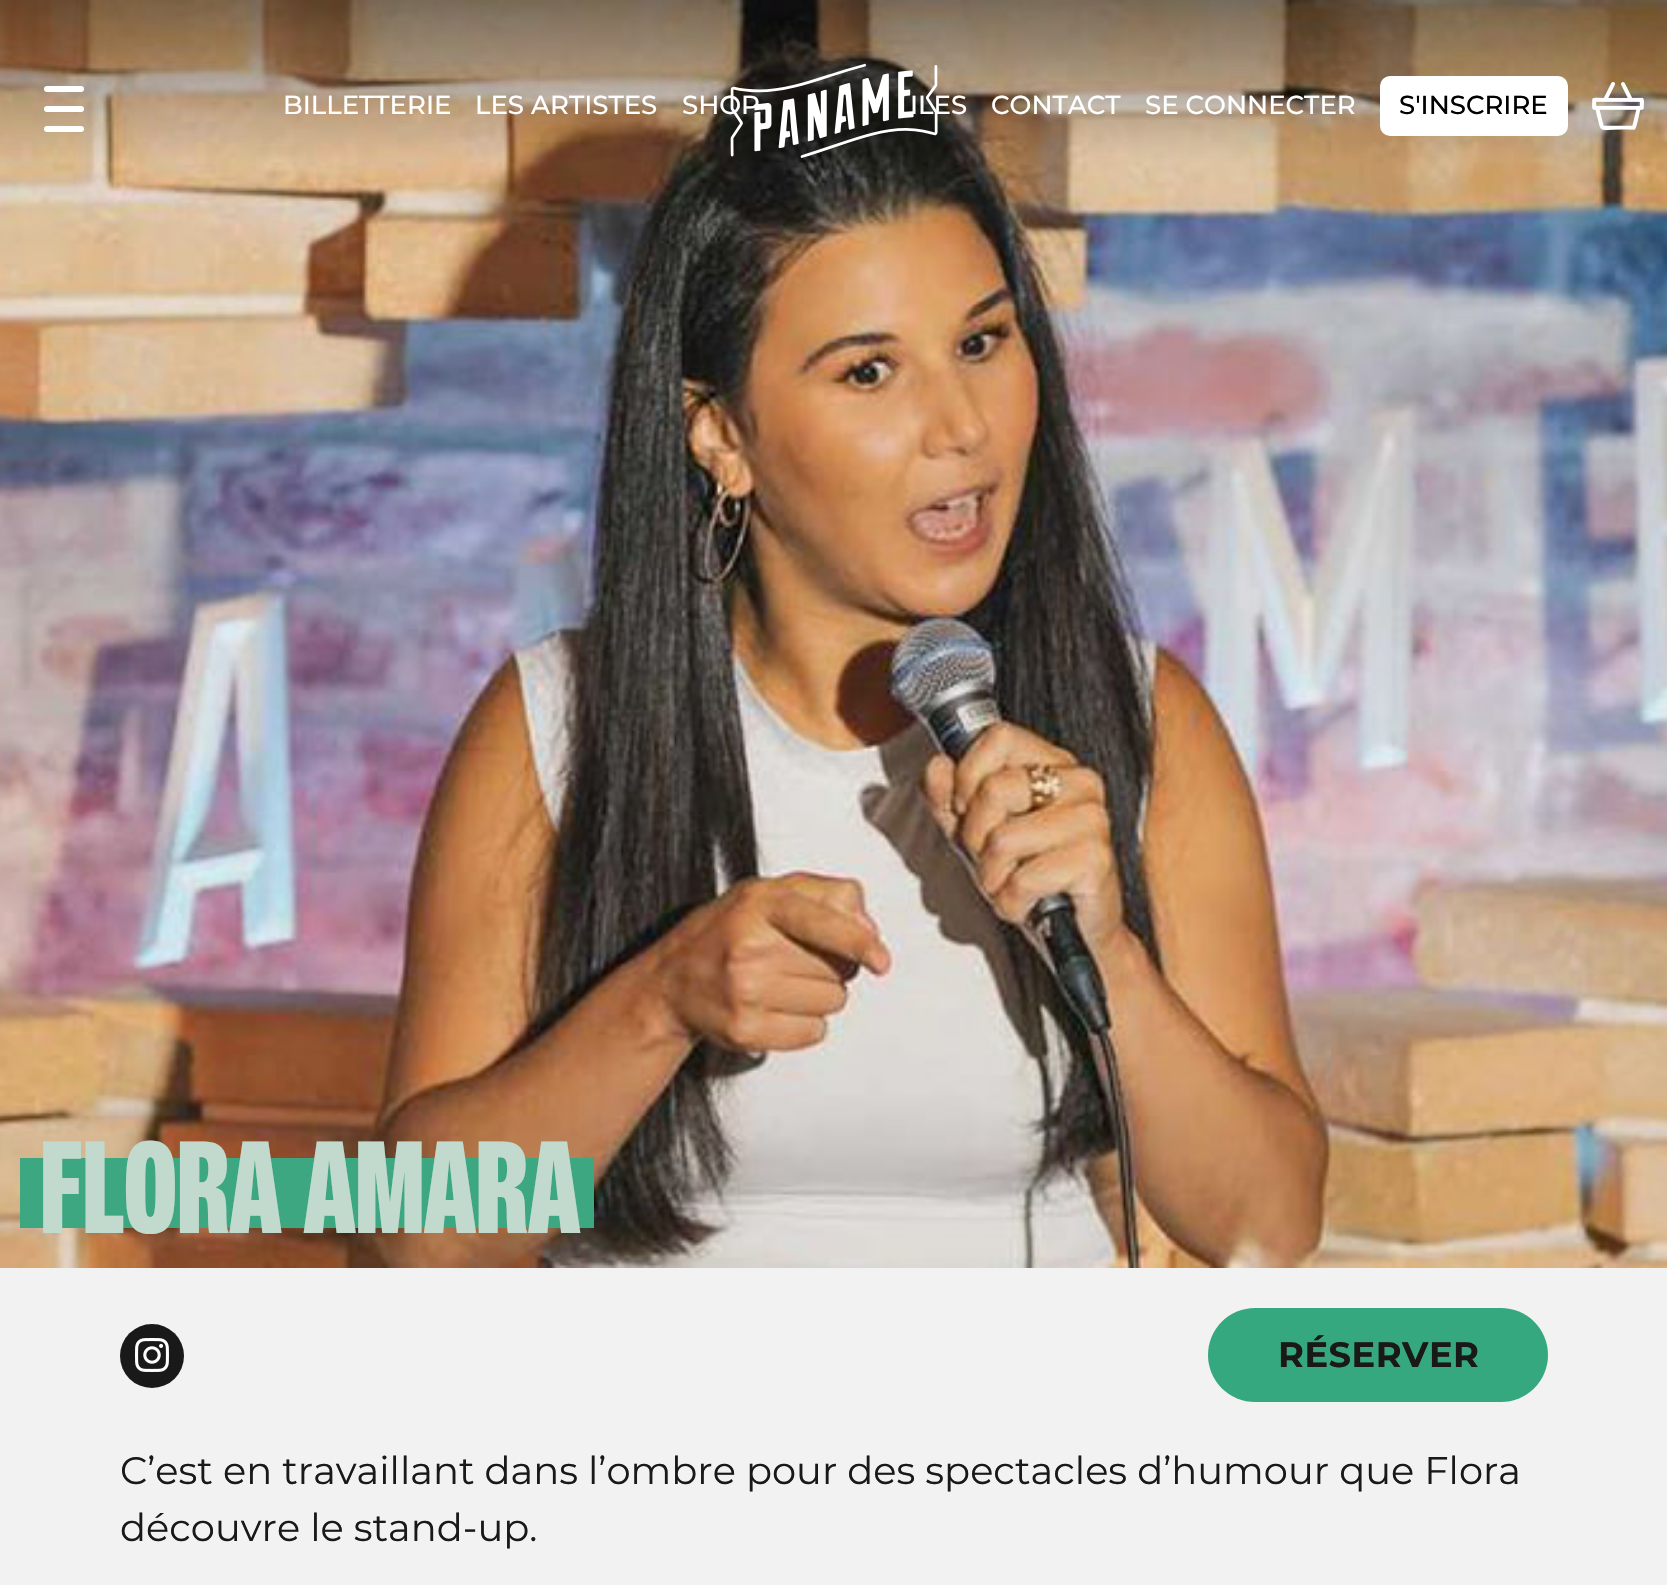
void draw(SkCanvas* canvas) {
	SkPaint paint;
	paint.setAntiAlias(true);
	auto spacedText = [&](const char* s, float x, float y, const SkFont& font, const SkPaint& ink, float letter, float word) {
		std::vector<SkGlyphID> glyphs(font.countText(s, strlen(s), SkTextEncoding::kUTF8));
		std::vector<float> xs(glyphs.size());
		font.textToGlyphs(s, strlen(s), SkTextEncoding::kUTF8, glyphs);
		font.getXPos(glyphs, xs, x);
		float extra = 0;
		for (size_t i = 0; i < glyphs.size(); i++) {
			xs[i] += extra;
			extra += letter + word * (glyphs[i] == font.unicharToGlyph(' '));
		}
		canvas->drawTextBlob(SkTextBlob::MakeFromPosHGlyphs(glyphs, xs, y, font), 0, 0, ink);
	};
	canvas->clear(0xfff2f2f2);
	canvas->drawImageRect(SkImages::DeferredFromEncodedData(SkData::MakeFromFileName("img3.png")), SkRect::MakeXYWH(0, 0, 1667, 1268), SkSamplingOptions());
	paint.setColor(0xffffffff);
	canvas->drawRoundRect(SkRect::MakeXYWH(44, 86, 40, 6), 3, 3, paint);
	canvas->drawRoundRect(SkRect::MakeXYWH(44, 106, 40, 6), 3, 3, paint);
	canvas->drawRoundRect(SkRect::MakeXYWH(44, 126, 40, 6), 3, 3, paint);
	SkFont f1(fontMgr->matchFamilyStyle("Montserrat", SkFontStyle(500, SkFontStyle::kNormal_Width, SkFontStyle::kUpright_Slant)), 26);
	f1.setSubpixel(true);
	canvas->drawString("SHOP", 682, 114, f1, paint);
	canvas->drawString("ILES", 910, 114, f1, paint);
	canvas->drawImageRect(SkImages::DeferredFromEncodedData(SkData::MakeFromFileName("img1.png")), SkRect::MakeXYWH(730, 63, 208, 95), SkSamplingOptions());
	canvas->drawString("BILLETTERIE", 283, 114, f1, paint);
	canvas->drawString("LES ARTISTES", 475, 114, f1, paint);
	canvas->drawString("CONTACT", 991, 114, f1, paint);
	canvas->drawString("SE CONNECTER", 1145, 114, f1, paint);
	canvas->drawRoundRect(SkRect::MakeXYWH(1380, 76, 188, 60), 10, 10, paint);
	paint.setColor(0xff000000);
	canvas->drawString("S'INSCRIRE", 1399, 114, f1, paint);
	canvas->drawImageRect(SkImages::DeferredFromEncodedData(SkData::MakeFromFileName("img2.png")), SkRect::MakeXYWH(1592, 82, 52, 48), SkSamplingOptions());
	paint.setColor(0xff3ca781);
	canvas->drawRect(SkRect::MakeXYWH(20, 1158, 574, 70), paint);
	SkFont f2(fontMgr->matchFamilyStyle("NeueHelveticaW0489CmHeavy", SkFontStyle(900, SkFontStyle::kNormal_Width, SkFontStyle::kUpright_Slant)), 128);
	f2.setSubpixel(true);
	paint.setColor(0xffc1dacd);
	canvas->drawString("FLORA AMARA", 40, 1233, f2, paint);
	paint.setColor(0xff191919);
	canvas->drawCircle(152, 1356, 32, paint);
	canvas->drawImageRect(SkImages::DeferredFromEncodedData(SkData::MakeFromFileName("img4.png")), SkRect::MakeXYWH(135, 1338, 34, 34), SkSamplingOptions());
	paint.setColor(0xff36a880);
	canvas->drawRoundRect(SkRect::MakeXYWH(1208, 1308, 340, 94), 47, 47, paint);
	SkFont f3(fontMgr->matchFamilyStyle("Montserrat", SkFontStyle::Bold()), 35.25);
	f3.setSubpixel(true);
	paint.setColor(0xff191919);
	spacedText("RÉSERVER", 1278, 1367, f3, paint, 0.5, 0);
	SkFont f4(fontMgr->matchFamilyStyle("Montserrat", SkFontStyle::Normal()), 38.4);
	f4.setSubpixel(true);
	canvas->drawString("C’est en travaillant dans l’ombre pour des spectacles d’humour que Flora", 120, 1484, f4, paint);
	canvas->drawString("découvre le stand-up.", 120, 1541, f4, paint);
}
